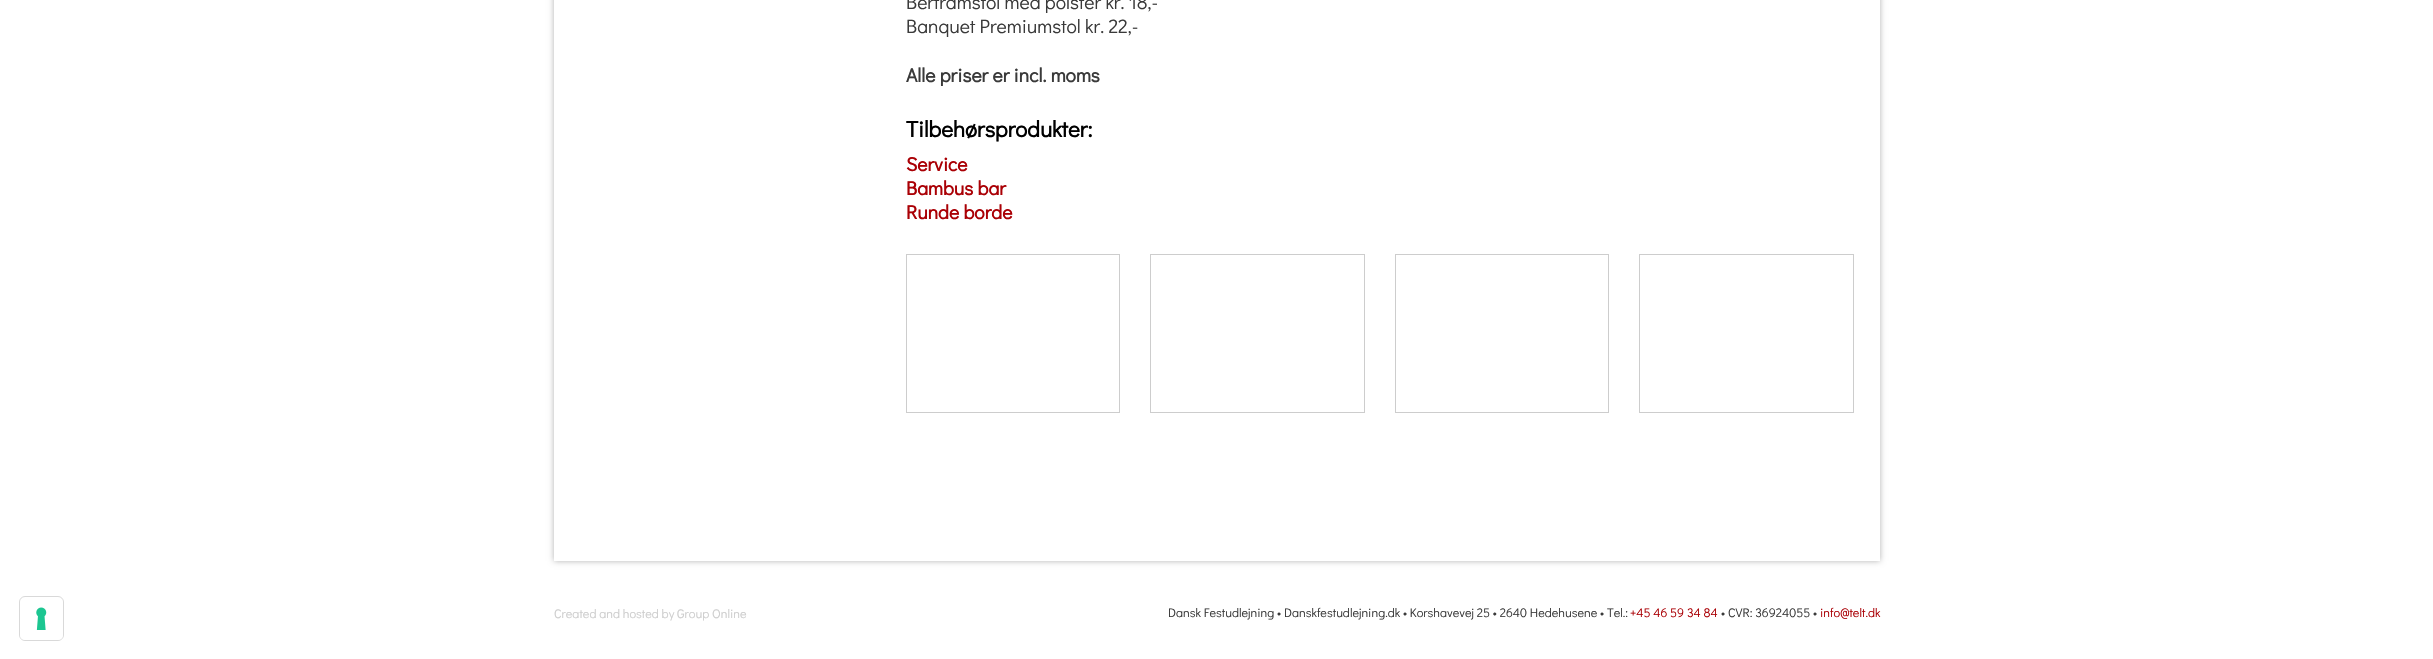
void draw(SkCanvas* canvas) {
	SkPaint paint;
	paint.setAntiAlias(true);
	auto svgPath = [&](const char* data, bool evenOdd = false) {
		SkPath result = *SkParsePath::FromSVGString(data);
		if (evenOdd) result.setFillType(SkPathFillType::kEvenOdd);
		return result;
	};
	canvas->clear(0xffffffff);
	paint.setStroke(true);
	paint.setStrokeWidth(1);
	paint.setColor(0xffd9d9d9);
	canvas->drawRoundRect(SkRect::MakeXYWH(19.5, 596.5, 44, 44), 5.5, 5.5, paint);
	paint.setStroke(false);
	paint.setColor(0xffffffff);
	canvas->drawRoundRect(SkRect::MakeXYWH(20, 598, 43, 42), 5, 5, paint);
	canvas->drawImageRect(SkImages::DeferredFromEncodedData(SkData::MakeFromFileName("img1.png")), SkRect::MakeXYWH(36, 607, 11, 23), SkSamplingOptions());
	canvas->save();
	canvas->clipPath(svgPath("M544 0H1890V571H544ZM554-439H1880V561H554Z", true), true);
	paint.setColor(0x4d000000);
	paint.setMaskFilter(SkMaskFilter::MakeBlur(kNormal_SkBlurStyle, 3));
	canvas->drawRect(SkRect::MakeXYWH(554, -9, 1326, 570), paint);
	paint.setMaskFilter(nullptr);
	canvas->restore();
	SkFont f1(fontMgr->matchFamilyStyle("Didact Gothic", SkFontStyle::Normal()), 19.4);
	f1.setSubpixel(true);
	paint.setColor(0xff3a3a3a);
	canvas->drawString("Bertramstol med polster kr. 18,-", 906, 9, f1, paint);
	canvas->drawString("Banquet Premiumstol kr. 22,-", 906, 33, f1, paint);
	SkFont f2(fontMgr->matchFamilyStyle("Didact Gothic", SkFontStyle::Bold()), 19.4);
	f2.setSubpixel(true);
	canvas->drawString("Alle priser er incl. moms", 906, 82, f2, paint);
	SkFont f3(fontMgr->matchFamilyStyle("Didact Gothic", SkFontStyle::Bold()), 22.5);
	f3.setSubpixel(true);
	paint.setColor(0xff000000);
	canvas->drawString("Tilbehørsprodukter:", 906, 137, f3, paint);
	paint.setColor(0xffaa0005);
	canvas->drawString("Service", 906, 171, f2, paint);
	canvas->drawString("Bambus bar", 906, 195, f2, paint);
	canvas->drawString("Runde borde", 906, 219, f2, paint);
	paint.setStroke(true);
	paint.setColor(0xffcdcdcd);
	canvas->drawRect(SkRect::MakeXYWH(906.5, 254.5, 213, 158), paint);
	canvas->drawRect(SkRect::MakeXYWH(1150.5, 254.5, 214, 158), paint);
	canvas->drawRect(SkRect::MakeXYWH(1395.5, 254.5, 213, 158), paint);
	canvas->drawRect(SkRect::MakeXYWH(1639.5, 254.5, 214, 158), paint);
	SkFont f4(fontMgr->matchFamilyStyle("Didact Gothic", SkFontStyle::Normal()), 12.5);
	f4.setSubpixel(true);
	paint.setStroke(false);
	canvas->drawString("Created and hosted by Group Online", 554, 618, f4, paint);
	paint.setColor(0xff3a3a3a);
	canvas->drawString("Dansk Festudlejning • Danskfestudlejning.dk • Korshavevej 25 • 2640 Hedehusene • Tel.:", 1168, 617, f4, paint);
	paint.setColor(0xffaa0005);
	canvas->drawString("+45 46 59 34 84", 1630, 617, f4, paint);
	paint.setColor(0xff3a3a3a);
	canvas->drawString("• CVR: 36924055 •", 1721, 617, f4, paint);
	paint.setColor(0xffaa0005);
	canvas->drawString("info@telt.dk", 1820, 617, f4, paint);
}
